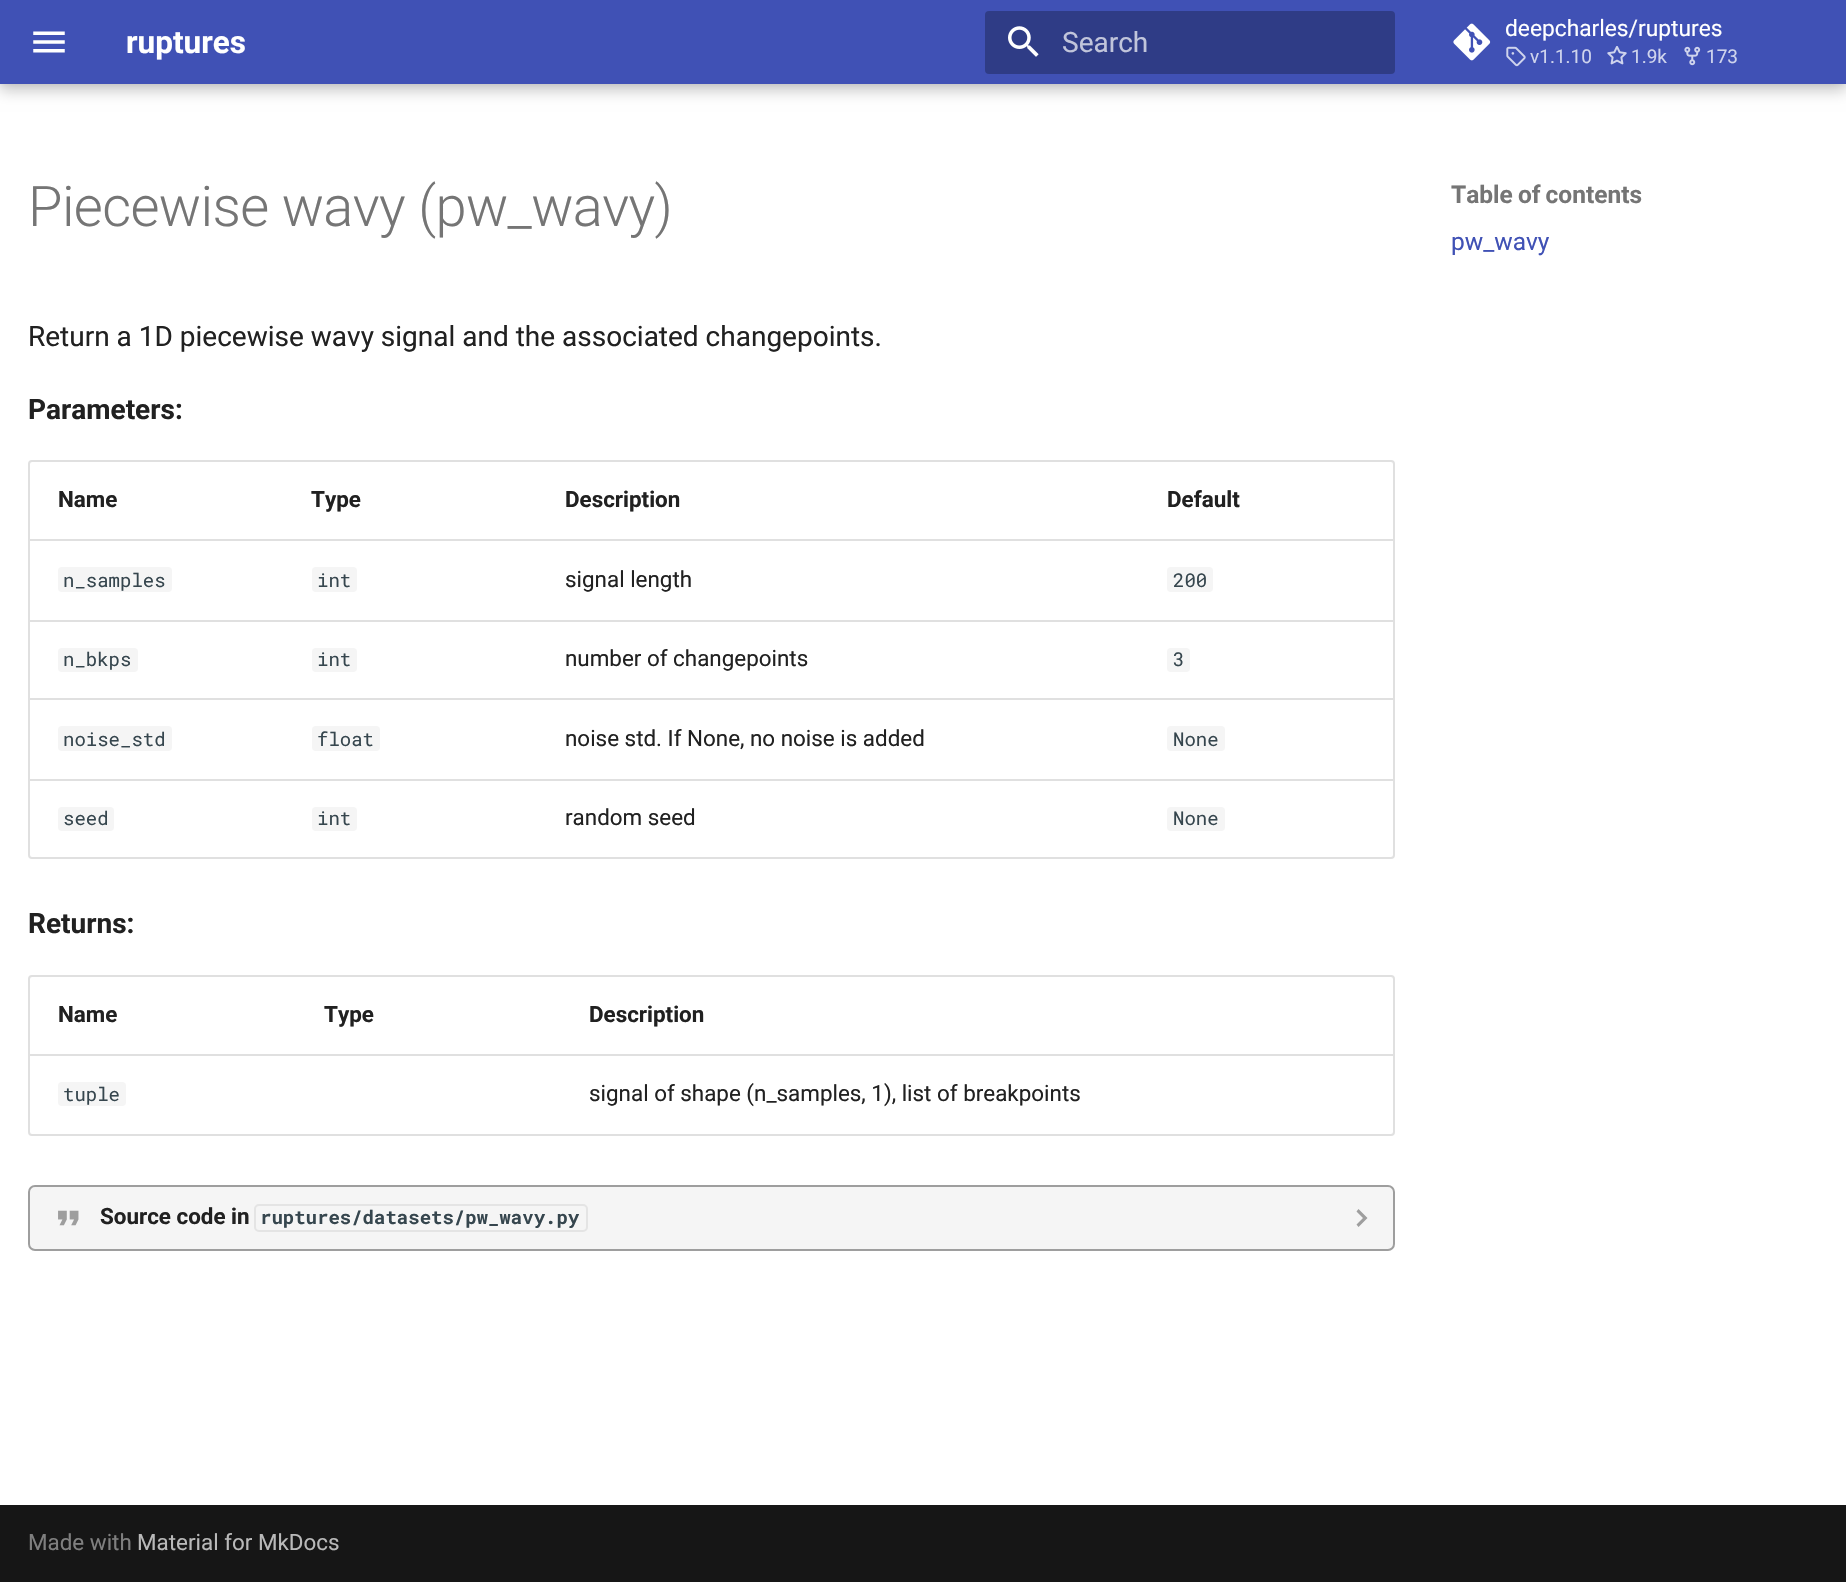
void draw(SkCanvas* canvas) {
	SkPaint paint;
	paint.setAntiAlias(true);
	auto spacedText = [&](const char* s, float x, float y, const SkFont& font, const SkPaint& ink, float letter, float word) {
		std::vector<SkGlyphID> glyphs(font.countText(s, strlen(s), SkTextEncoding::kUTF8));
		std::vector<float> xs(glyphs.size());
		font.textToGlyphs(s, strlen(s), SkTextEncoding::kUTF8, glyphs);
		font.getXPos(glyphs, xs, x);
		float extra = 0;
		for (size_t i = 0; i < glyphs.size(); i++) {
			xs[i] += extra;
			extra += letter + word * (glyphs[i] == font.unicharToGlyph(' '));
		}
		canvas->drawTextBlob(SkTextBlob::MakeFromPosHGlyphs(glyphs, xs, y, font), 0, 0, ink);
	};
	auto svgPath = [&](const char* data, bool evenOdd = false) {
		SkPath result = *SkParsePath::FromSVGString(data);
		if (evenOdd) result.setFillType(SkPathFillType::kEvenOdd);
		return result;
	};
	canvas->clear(0xffffffff);
	paint.setColor(0x33000000);
	paint.setMaskFilter(SkMaskFilter::MakeBlur(kNormal_SkBlurStyle, 7));
	canvas->drawRect(SkRect::MakeXYWH(0, 7, 1846, 84), paint);
	paint.setMaskFilter(nullptr);
	paint.setColor(0x1a000000);
	paint.setMaskFilter(SkMaskFilter::MakeBlur(kNormal_SkBlurStyle, 3.5));
	canvas->drawRect(SkRect::MakeXYWH(0, 0, 1846, 84), paint);
	paint.setMaskFilter(nullptr);
	paint.setColor(0xff4051b5);
	canvas->drawRect(SkRect::MakeXYWH(0, 0, 1846, 84), paint);
	canvas->drawImageRect(SkImages::DeferredFromEncodedData(SkData::MakeFromFileName("img1.png")), SkRect::MakeXYWH(33, 31, 32, 22), SkSamplingOptions());
	SkFont f1(fontMgr->matchFamilyStyle("Roboto", SkFontStyle::Bold()), 31.5);
	f1.setSubpixel(true);
	paint.setColor(0xffffffff);
	canvas->drawString("ruptures", 126, 53, f1, paint);
	paint.setColor(0xff2f3c86);
	canvas->drawRoundRect(SkRect::MakeXYWH(985, 11, 410, 63), 4, 4, paint);
	canvas->drawImageRect(SkImages::DeferredFromEncodedData(SkData::MakeFromFileName("img2.png")), SkRect::MakeXYWH(1008, 26, 31, 31), SkSamplingOptions());
	SkFont f2(fontMgr->matchFamilyStyle("Roboto", SkFontStyle::Normal()), 28);
	f2.setSubpixel(true);
	paint.setColor(0xffc1c5db);
	canvas->drawString("Search", 1062, 52, f2, paint);
	canvas->drawImageRect(SkImages::DeferredFromEncodedData(SkData::MakeFromFileName("img3.png")), SkRect::MakeXYWH(1453, 23, 38, 38), SkSamplingOptions());
	SkFont f3(fontMgr->matchFamilyStyle("Roboto", SkFontStyle::Normal()), 22.75);
	f3.setSubpixel(true);
	paint.setColor(0xffffffff);
	canvas->drawString("deepcharles/ruptures", 1505, 36, f3, paint);
	canvas->drawImageRect(SkImages::DeferredFromEncodedData(SkData::MakeFromFileName("img4.png")), SkRect::MakeXYWH(1506, 46, 20, 21), SkSamplingOptions());
	SkFont f4(fontMgr->matchFamilyStyle("Roboto", SkFontStyle::Normal()), 19);
	f4.setSubpixel(true);
	paint.setColor(0xffcfd4ed);
	canvas->drawString("v1.1.10", 1530, 63, f4, paint);
	canvas->drawImageRect(SkImages::DeferredFromEncodedData(SkData::MakeFromFileName("img5.png")), SkRect::MakeXYWH(1607, 46, 20, 19), SkSamplingOptions());
	canvas->drawString("1.9k", 1631, 63, f4, paint);
	canvas->drawImageRect(SkImages::DeferredFromEncodedData(SkData::MakeFromFileName("img6.png")), SkRect::MakeXYWH(1684, 46, 17, 20), SkSamplingOptions());
	canvas->drawString("173", 1706, 63, f4, paint);
	SkFont f5(fontMgr->matchFamilyStyle("Roboto", SkFontStyle(300, SkFontStyle::kNormal_Width, SkFontStyle::kUpright_Slant)), 56);
	f5.setSubpixel(true);
	paint.setColor(0xff757575);
	spacedText("Piecewise wavy (pw_wavy)", 28, 226, f5, paint, -0.6, 0);
	paint.setColor(0xff212121);
	canvas->drawString("Return a 1D piecewise wavy signal and the associated changepoints.", 28, 346, f2, paint);
	SkFont f6(fontMgr->matchFamilyStyle("Roboto", SkFontStyle::Bold()), 28);
	f6.setSubpixel(true);
	canvas->drawString("Parameters:", 28, 419, f6, paint);
	paint.setStroke(true);
	paint.setStrokeWidth(2);
	paint.setColor(0xffe0e0e0);
	canvas->drawRoundRect(SkRect::MakeXYWH(29, 461, 1365, 397), 3, 3, paint);
	SkFont f7(fontMgr->matchFamilyStyle("Roboto", SkFontStyle::Bold()), 22.4);
	f7.setSubpixel(true);
	paint.setStroke(false);
	paint.setColor(0xff212121);
	canvas->drawString("Name", 58, 507, f7, paint);
	canvas->drawString("Type", 311, 507, f7, paint);
	canvas->drawString("Description", 565, 507, f7, paint);
	canvas->drawString("Default", 1167, 507, f7, paint);
	paint.setColor(0xffe0e0e0);
	canvas->drawRect(SkRect::MakeXYWH(30, 539, 1363, 2), paint);
	paint.setColor(0xfff5f5f5);
	canvas->drawRoundRect(SkRect::MakeXYWH(58, 567, 114, 25), 4, 4, paint);
	SkFont f8(fontMgr->matchFamilyStyle("Roboto Mono", SkFontStyle::Normal()), 19);
	f8.setSubpixel(true);
	paint.setColor(0xff36464e);
	canvas->drawString("n_samples", 63, 587, f8, paint);
	paint.setColor(0xfff5f5f5);
	canvas->drawRoundRect(SkRect::MakeXYWH(312, 567, 45, 25), 4, 4, paint);
	paint.setColor(0xff36464e);
	canvas->drawString("int", 317, 587, f8, paint);
	SkFont f9(fontMgr->matchFamilyStyle("Roboto", SkFontStyle::Normal()), 22.4);
	f9.setSubpixel(true);
	paint.setColor(0xff212121);
	canvas->drawString("signal length", 565, 587, f9, paint);
	paint.setColor(0xfff5f5f5);
	canvas->drawRoundRect(SkRect::MakeXYWH(1167, 567, 46, 25), 4, 4, paint);
	paint.setColor(0xff36464e);
	canvas->drawString("200", 1173, 587, f8, paint);
	paint.setColor(0xffe0e0e0);
	canvas->drawRect(SkRect::MakeXYWH(30, 620, 1363, 2), paint);
	paint.setColor(0xfff5f5f5);
	canvas->drawRoundRect(SkRect::MakeXYWH(58, 648, 80, 24), 4, 4, paint);
	paint.setColor(0xff36464e);
	canvas->drawString("n_bkps", 63, 666, f8, paint);
	paint.setColor(0xfff5f5f5);
	canvas->drawRoundRect(SkRect::MakeXYWH(312, 648, 45, 24), 4, 4, paint);
	paint.setColor(0xff36464e);
	canvas->drawString("int", 317, 666, f8, paint);
	paint.setColor(0xff212121);
	canvas->drawString("number of changepoints", 565, 666, f9, paint);
	paint.setColor(0xfff5f5f5);
	canvas->drawRoundRect(SkRect::MakeXYWH(1167, 648, 23, 24), 4, 4, paint);
	paint.setColor(0xff36464e);
	canvas->drawString("3", 1173, 666, f8, paint);
	paint.setColor(0xffe0e0e0);
	canvas->drawRect(SkRect::MakeXYWH(30, 698, 1363, 2), paint);
	paint.setColor(0xfff5f5f5);
	canvas->drawRoundRect(SkRect::MakeXYWH(58, 726, 114, 25), 4, 4, paint);
	paint.setColor(0xff36464e);
	canvas->drawString("noise_std", 63, 746, f8, paint);
	paint.setColor(0xfff5f5f5);
	canvas->drawRoundRect(SkRect::MakeXYWH(312, 726, 68, 25), 4, 4, paint);
	paint.setColor(0xff36464e);
	canvas->drawString("float", 317, 746, f8, paint);
	paint.setColor(0xff212121);
	canvas->drawString("noise std. If None, no noise is added", 565, 746, f9, paint);
	paint.setColor(0xfff5f5f5);
	canvas->drawRoundRect(SkRect::MakeXYWH(1167, 726, 58, 25), 4, 4, paint);
	paint.setColor(0xff36464e);
	canvas->drawString("None", 1173, 746, f8, paint);
	paint.setColor(0xffe0e0e0);
	canvas->drawRect(SkRect::MakeXYWH(30, 779, 1363, 2), paint);
	paint.setColor(0xfff5f5f5);
	canvas->drawRoundRect(SkRect::MakeXYWH(58, 807, 56, 24), 4, 4, paint);
	paint.setColor(0xff36464e);
	canvas->drawString("seed", 63, 825, f8, paint);
	paint.setColor(0xfff5f5f5);
	canvas->drawRoundRect(SkRect::MakeXYWH(312, 807, 45, 24), 4, 4, paint);
	paint.setColor(0xff36464e);
	canvas->drawString("int", 317, 825, f8, paint);
	paint.setColor(0xff212121);
	canvas->drawString("random seed", 565, 825, f9, paint);
	paint.setColor(0xfff5f5f5);
	canvas->drawRoundRect(SkRect::MakeXYWH(1167, 807, 58, 24), 4, 4, paint);
	paint.setColor(0xff36464e);
	canvas->drawString("None", 1173, 825, f8, paint);
	paint.setColor(0xff212121);
	canvas->drawString("Returns:", 28, 933, f6, paint);
	paint.setStroke(true);
	paint.setColor(0xffe0e0e0);
	canvas->drawRoundRect(SkRect::MakeXYWH(29, 976, 1365, 159), 3, 3, paint);
	paint.setStroke(false);
	paint.setColor(0xff212121);
	canvas->drawString("Name", 58, 1022, f7, paint);
	canvas->drawString("Type", 324, 1022, f7, paint);
	canvas->drawString("Description", 589, 1022, f7, paint);
	paint.setColor(0xffe0e0e0);
	canvas->drawRect(SkRect::MakeXYWH(30, 1054, 1363, 2), paint);
	paint.setColor(0xfff5f5f5);
	canvas->drawRoundRect(SkRect::MakeXYWH(58, 1082, 68, 24), 4, 4, paint);
	paint.setColor(0xff36464e);
	canvas->drawString("tuple", 63, 1101, f8, paint);
	paint.setColor(0xff212121);
	canvas->drawString("signal of shape (n_samples, 1), list of breakpoints", 589, 1101, f9, paint);
	paint.setStroke(true);
	paint.setColor(0xff9e9e9e);
	canvas->drawRoundRect(SkRect::MakeXYWH(29, 1186, 1365, 64), 6, 6, paint);
	paint.setStroke(false);
	paint.setColor(0x1a9e9e9e);
	canvas->drawRoundRect(SkRect::MakeXYWH(30, 1187, 1363, 63), 4, 4, paint);
	canvas->drawImageRect(SkImages::DeferredFromEncodedData(SkData::MakeFromFileName("img7.png")), SkRect::MakeXYWH(58, 1210, 21, 16), SkSamplingOptions());
	paint.setColor(0xff212121);
	canvas->drawString("Source code in", 100, 1224, f7, paint);
	paint.setStroke(true);
	paint.setColor(0xffe4e4e4);
	canvas->drawRoundRect(SkRect::MakeXYWH(255, 1205, 332, 26), 4, 4, paint);
	SkFont f10(fontMgr->matchFamilyStyle("Roboto Mono", SkFontStyle::Bold()), 19);
	f10.setSubpixel(true);
	paint.setStroke(false);
	paint.setColor(0xff36464e);
	canvas->drawString("ruptures/datasets/pw_wavy.py", 260, 1224, f10, paint);
	paint.setColor(0xff9e9e9e);
	canvas->drawPath(svgPath("M1356.5 1224.5L1363 1218L1356.5 1211.5L1358.5 1209L1367.5 1218L1358.5 1227Z"), paint);
	SkFont f11(fontMgr->matchFamilyStyle("Roboto", SkFontStyle::Bold()), 24.5);
	f11.setSubpixel(true);
	paint.setColor(0xff757575);
	spacedText("Table of contents", 1451, 203, f11, paint, 0, -1);
	SkFont f12(fontMgr->matchFamilyStyle("Roboto", SkFontStyle::Normal()), 24.5);
	f12.setSubpixel(true);
	paint.setColor(0xff4051b5);
	canvas->drawString("pw_wavy", 1451, 250, f12, paint);
	paint.setColor(0xff161616);
	canvas->drawRect(SkRect::MakeXYWH(0, 1505, 1846, 77), paint);
	paint.setColor(0xff7f7f7f);
	canvas->drawString("Made with", 28, 1550, f9, paint);
	paint.setColor(0xffb9b9b9);
	canvas->drawString("Material for MkDocs", 137, 1550, f9, paint);
}
